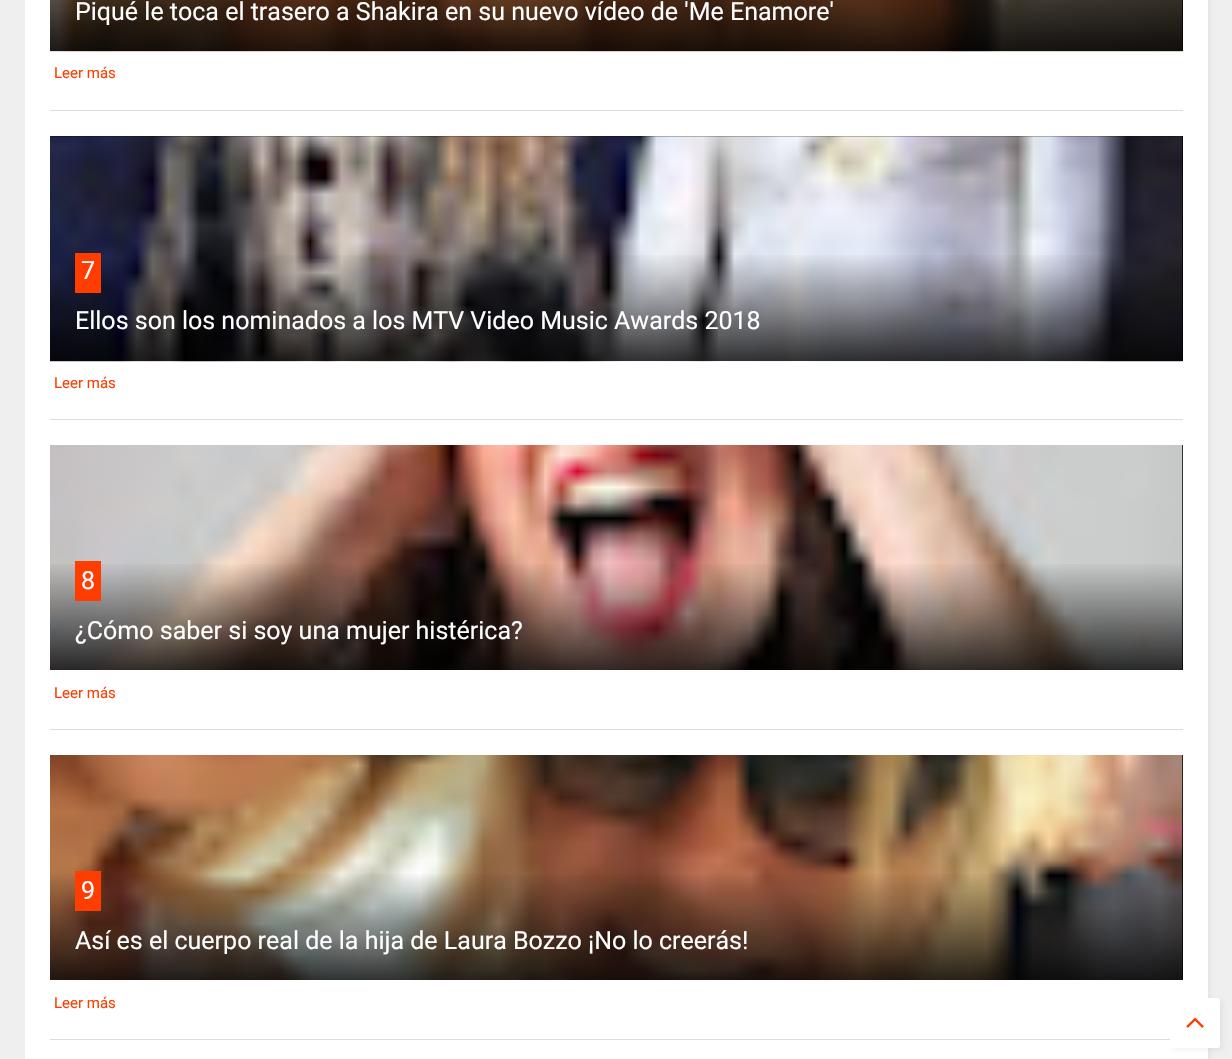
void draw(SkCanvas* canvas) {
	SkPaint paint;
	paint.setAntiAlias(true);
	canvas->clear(0xffefefef);
	paint.setColor(0x0d000000);
	paint.setMaskFilter(SkMaskFilter::MakeBlur(kNormal_SkBlurStyle, 2));
	canvas->drawRect(SkRect::MakeXYWH(28, -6, 1182, 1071), paint);
	paint.setMaskFilter(nullptr);
	paint.setColor(0xffffffff);
	canvas->drawRect(SkRect::MakeXYWH(25, 0, 1183, 1059), paint);
	paint.setColor(0xff000000);
	canvas->drawRect(SkRect::MakeXYWH(1182, 0, 1, 51), paint);
	canvas->drawImageRect(SkImages::DeferredFromEncodedData(SkData::MakeFromFileName("img1.png")), SkRect::MakeXYWH(50, 0, 1133, 52), SkSamplingOptions());
	{
		const SkColor colors[] = {0x00000000, 0xcc000000};
		const float stops[] = {0, 1};
		const SkPoint ends[] = {{616, -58}, {616, 51}};
		paint.setShader(SkGradientShader::MakeLinear(ends, colors, stops, 2, SkTileMode::kClamp));
		paint.setAlpha(255);
	}
	canvas->drawRect(SkRect::MakeXYWH(50, 0, 1133, 51), paint);
	SkFont f1(fontMgr->matchFamilyStyle("Roboto", SkFontStyle::Normal()), 25);
	f1.setSubpixel(true);
	paint.setShader(nullptr);
	paint.setColor(0xffffffff);
	canvas->drawString("Piqué le toca el trasero a Shakira en su nuevo vídeo de 'Me Enamore'", 75, 20, f1, paint);
	paint.setColor(0xffdddddd);
	canvas->drawRect(SkRect::MakeXYWH(50, 110, 1133, 1), paint);
	SkFont f2(fontMgr->matchFamilyStyle("Roboto", SkFontStyle::Normal()), 15);
	f2.setSubpixel(true);
	paint.setColor(0xffff3d00);
	canvas->drawString("Leer más", 54, 78, f2, paint);
	paint.setColor(0xff000000);
	canvas->drawRect(SkRect::MakeXYWH(50, 136, 1133, 225), paint);
	canvas->drawImageRect(SkImages::DeferredFromEncodedData(SkData::MakeFromFileName("img2.png")), SkRect::MakeXYWH(50, 136, 1133, 226), SkSamplingOptions());
	{
		const SkColor colors[] = {0x00000000, 0xcc000000};
		const float stops[] = {0, 1};
		const SkPoint ends[] = {{616, 252}, {616, 361}};
		paint.setShader(SkGradientShader::MakeLinear(ends, colors, stops, 2, SkTileMode::kClamp));
		paint.setAlpha(255);
	}
	canvas->drawRect(SkRect::MakeXYWH(50, 255, 1133, 106), paint);
	paint.setShader(nullptr);
	paint.setColor(0xffff3d00);
	canvas->drawRect(SkRect::MakeXYWH(75, 253, 26, 40), paint);
	paint.setColor(0xffffffff);
	canvas->drawString("7", 81, 279, f1, paint);
	canvas->drawString("Ellos son los nominados a los MTV Video Music Awards 2018", 75, 329, f1, paint);
	paint.setColor(0xffdddddd);
	canvas->drawRect(SkRect::MakeXYWH(50, 419, 1133, 1), paint);
	paint.setColor(0xffff3d00);
	canvas->drawString("Leer más", 54, 388, f2, paint);
	paint.setColor(0xff000000);
	canvas->drawRect(SkRect::MakeXYWH(1182, 445, 1, 225), paint);
	canvas->drawImageRect(SkImages::DeferredFromEncodedData(SkData::MakeFromFileName("img3.png")), SkRect::MakeXYWH(50, 445, 1133, 225), SkSamplingOptions());
	{
		const SkColor colors[] = {0x00000000, 0xcc000000};
		const float stops[] = {0, 1};
		const SkPoint ends[] = {{616, 561}, {616, 670}};
		paint.setShader(SkGradientShader::MakeLinear(ends, colors, stops, 2, SkTileMode::kClamp));
		paint.setAlpha(255);
	}
	canvas->drawRect(SkRect::MakeXYWH(50, 564, 1133, 106), paint);
	paint.setShader(nullptr);
	paint.setColor(0xffff3d00);
	canvas->drawRect(SkRect::MakeXYWH(75, 561, 26, 40), paint);
	paint.setColor(0xffffffff);
	canvas->drawString("8", 81, 589, f1, paint);
	canvas->drawString("¿Cómo saber si soy una mujer histérica?", 75, 639, f1, paint);
	paint.setColor(0xffdddddd);
	canvas->drawRect(SkRect::MakeXYWH(50, 729, 1133, 1), paint);
	paint.setColor(0xffff3d00);
	canvas->drawString("Leer más", 54, 698, f2, paint);
	paint.setColor(0xff000000);
	canvas->drawRect(SkRect::MakeXYWH(1182, 755, 1, 225), paint);
	canvas->drawImageRect(SkImages::DeferredFromEncodedData(SkData::MakeFromFileName("img4.png")), SkRect::MakeXYWH(50, 755, 1133, 225), SkSamplingOptions());
	{
		const SkColor colors[] = {0x00000000, 0xcc000000};
		const float stops[] = {0, 1};
		const SkPoint ends[] = {{616, 871}, {616, 980}};
		paint.setShader(SkGradientShader::MakeLinear(ends, colors, stops, 2, SkTileMode::kClamp));
		paint.setAlpha(255);
	}
	canvas->drawRect(SkRect::MakeXYWH(50, 874, 1133, 106), paint);
	paint.setShader(nullptr);
	paint.setColor(0xffff3d00);
	canvas->drawRect(SkRect::MakeXYWH(75, 871, 26, 40), paint);
	paint.setColor(0xffffffff);
	canvas->drawString("9", 81, 899, f1, paint);
	canvas->drawString("Así es el cuerpo real de la hija de Laura Bozzo ¡No lo creerás!", 75, 949, f1, paint);
	paint.setColor(0xffdddddd);
	canvas->drawRect(SkRect::MakeXYWH(50, 1039, 1120, 1), paint);
	paint.setColor(0xffff3d00);
	canvas->drawString("Leer más", 54, 1008, f2, paint);
	paint.setColor(0x0d000000);
	paint.setMaskFilter(SkMaskFilter::MakeBlur(kNormal_SkBlurStyle, 2));
	canvas->drawRoundRect(SkRect::MakeXYWH(1173, 1000, 50, 50), 2.5, 2.5, paint);
	paint.setMaskFilter(nullptr);
	paint.setColor(0xffffffff);
	canvas->drawRoundRect(SkRect::MakeXYWH(1170, 998, 50, 50), 2.5, 2.5, paint);
	canvas->drawImageRect(SkImages::DeferredFromEncodedData(SkData::MakeFromFileName("img5.png")), SkRect::MakeXYWH(1186, 1017, 18, 11), SkSamplingOptions());
}
